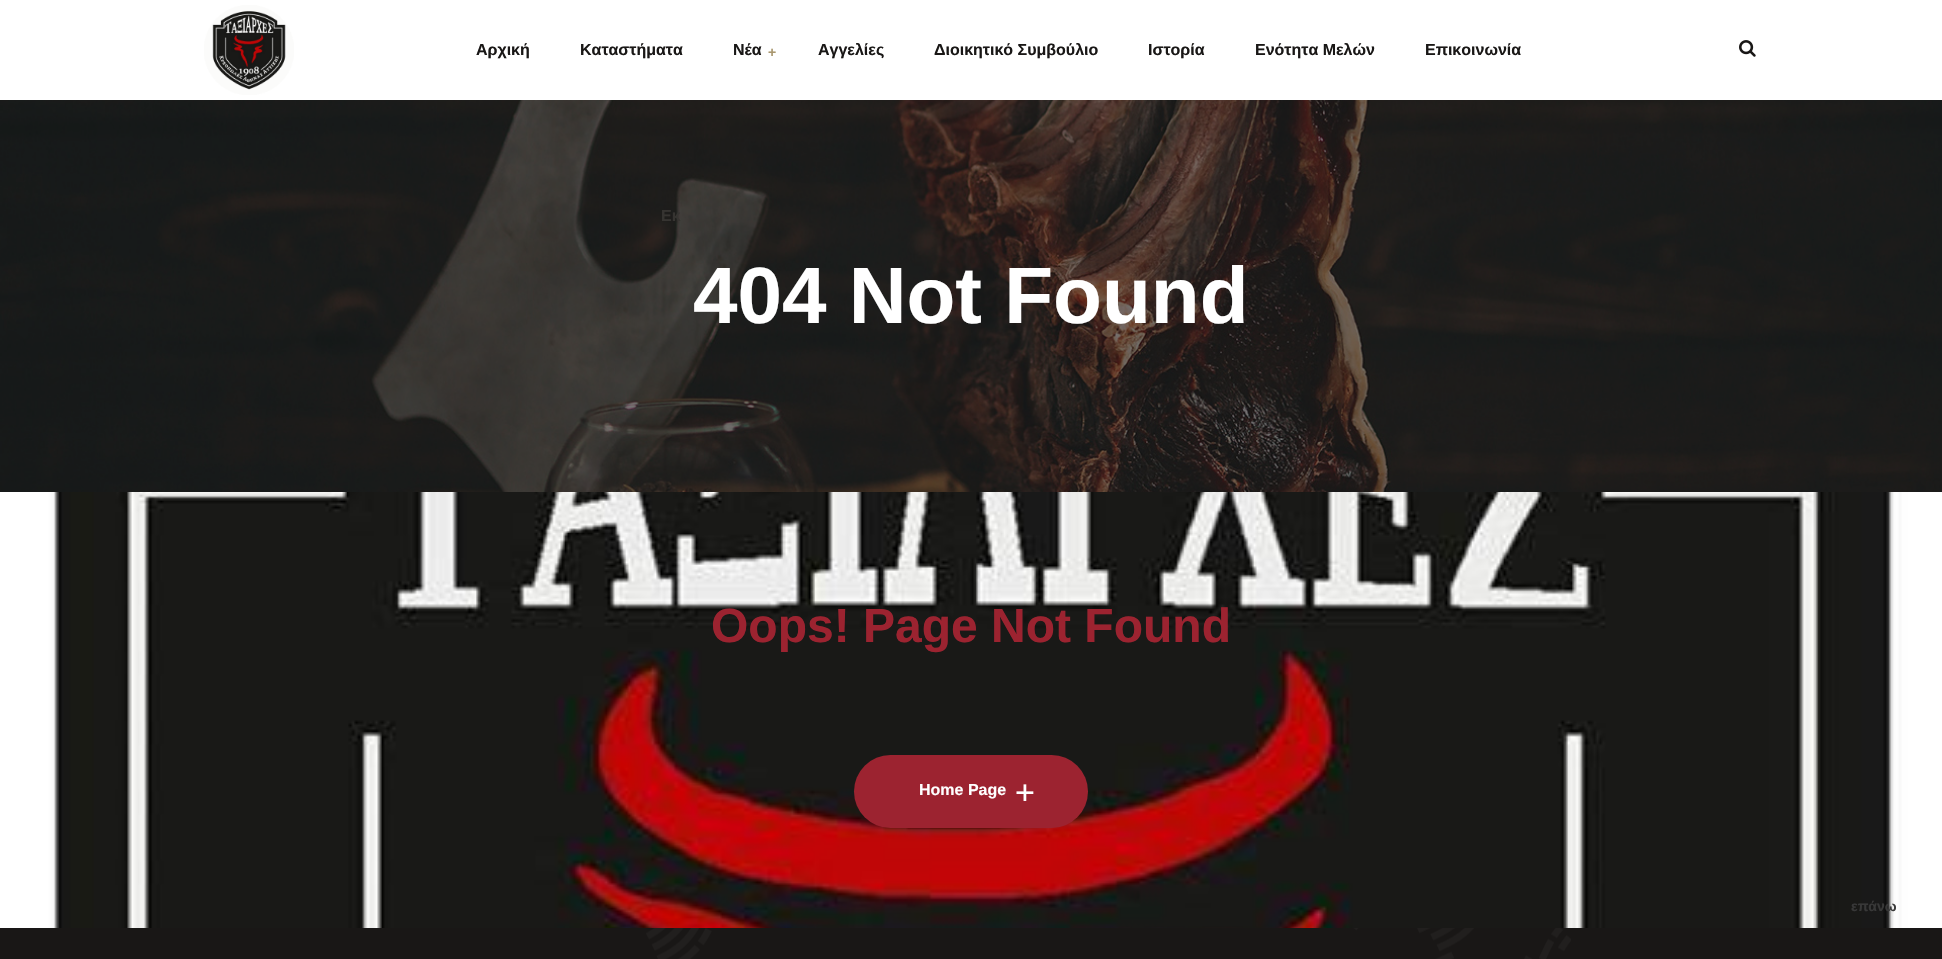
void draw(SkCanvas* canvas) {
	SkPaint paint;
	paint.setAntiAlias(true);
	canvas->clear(0xffffffff);
	canvas->drawImageRect(SkImages::DeferredFromEncodedData(SkData::MakeFromFileName("img1.png")), SkRect::MakeXYWH(46, 492, 1862, 436), SkSamplingOptions());
	canvas->drawImageRect(SkImages::DeferredFromEncodedData(SkData::MakeFromFileName("img2.png")), SkRect::MakeXYWH(204, 5, 90, 90), SkSamplingOptions());
	SkFont f1(fontMgr->matchFamilyStyle("Liberation Sans", SkFontStyle::Bold()), 16);
	f1.setSubpixel(true);
	paint.setColor(0xff191716);
	canvas->drawString("Αρχική", 476, 55, f1, paint);
	canvas->drawString("Καταστήματα", 580, 55, f1, paint);
	canvas->drawString("Νέα", 733, 55, f1, paint);
	SkFont f2(fontMgr->matchFamilyStyle("Liberation Sans", SkFontStyle::Bold()), 14);
	f2.setSubpixel(true);
	paint.setColor(0xffa9976f);
	canvas->drawString("+", 768, 57, f2, paint);
	canvas->drawImageRect(SkImages::DeferredFromEncodedData(SkData::MakeFromFileName("img4.png")), SkRect::MakeXYWH(0, 100, 1942, 392), SkSamplingOptions());
	paint.setColor(0xff363431);
	canvas->drawString("Εκ", 661, 221, f1, paint);
	paint.setColor(0xff191716);
	canvas->drawString("Αγγελίες", 818, 55, f1, paint);
	canvas->drawString("Διοικητικό Συμβούλιο", 934, 55, f1, paint);
	canvas->drawString("Ιστορία", 1148, 55, f1, paint);
	canvas->drawString("Ενότητα Μελών", 1255, 55, f1, paint);
	canvas->drawString("Επικοινωνία", 1425, 55, f1, paint);
	canvas->drawImageRect(SkImages::DeferredFromEncodedData(SkData::MakeFromFileName("img3.png")), SkRect::MakeXYWH(1739, 40, 17, 17), SkSamplingOptions());
	SkFont f3(fontMgr->matchFamilyStyle("Liberation Sans", SkFontStyle::Bold()), 80);
	f3.setSubpixel(true);
	paint.setColor(0xffffffff);
	canvas->drawString("404 Not Found", 693, 323, f3, paint);
	SkFont f4(fontMgr->matchFamilyStyle("Liberation Sans", SkFontStyle::Bold()), 48);
	f4.setSubpixel(true);
	paint.setColor(0xff9c2330);
	canvas->drawString("Oops! Page Not Found", 711, 642, f4, paint);
	canvas->drawRoundRect(SkRect::MakeXYWH(854, 755, 234, 73), 36.5, 36.5, paint);
	paint.setColor(0xffffffff);
	canvas->drawString("Home Page", 919, 795, f1, paint);
	SkFont f5(fontMgr->matchFamilyStyle("Liberation Sans", SkFontStyle::Normal()), 34);
	f5.setSubpixel(true);
	canvas->drawString("+", 1015, 804, f5, paint);
	paint.setColor(0xff383838);
	canvas->drawString("επάνω", 1851, 911, f2, paint);
	paint.setColor(0xff191716);
	canvas->drawRect(SkRect::MakeXYWH(0, 928, 1942, 31), paint);
	canvas->drawImageRect(SkImages::DeferredFromEncodedData(SkData::MakeFromFileName("img5.png")), SkRect::MakeXYWH(646, 928, 925, 31), SkSamplingOptions());
}
